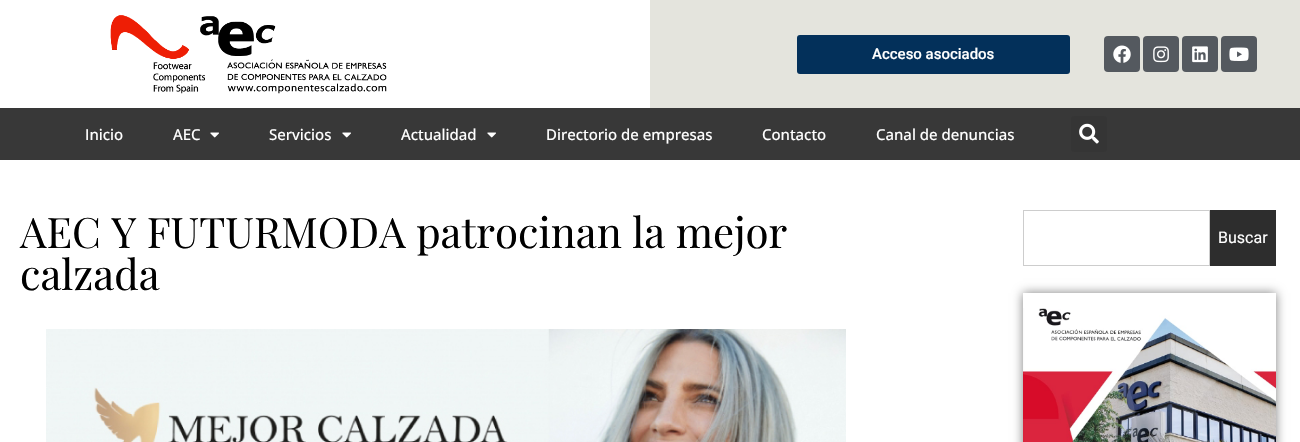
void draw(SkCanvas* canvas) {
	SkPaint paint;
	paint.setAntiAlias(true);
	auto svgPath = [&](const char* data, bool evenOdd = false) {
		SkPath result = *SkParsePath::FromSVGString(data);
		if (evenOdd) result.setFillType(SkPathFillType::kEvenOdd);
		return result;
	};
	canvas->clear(0xffffffff);
	canvas->drawImageRect(SkImages::DeferredFromEncodedData(SkData::MakeFromFileName("img1.png")), SkRect::MakeXYWH(110, 15, 277, 79), SkSamplingOptions());
	paint.setColor(0xffe4e4dd);
	canvas->drawRect(SkRect::MakeXYWH(650, 0, 650, 108), paint);
	paint.setColor(0xff03305a);
	canvas->drawRoundRect(SkRect::MakeXYWH(797, 35, 273, 39), 3, 3, paint);
	SkFont f1(fontMgr->matchFamilyStyle("Roboto", SkFontStyle(500, SkFontStyle::kNormal_Width, SkFontStyle::kUpright_Slant)), 15);
	f1.setSubpixel(true);
	paint.setColor(0xffffffff);
	canvas->drawString("Acceso asociados", 872, 59, f1, paint);
	paint.setColor(0xff54595f);
	canvas->drawRoundRect(SkRect::MakeXYWH(1104, 36, 36, 36), 4, 4, paint);
	canvas->drawImageRect(SkImages::DeferredFromEncodedData(SkData::MakeFromFileName("img2.png")), SkRect::MakeXYWH(1113, 45, 18, 18), SkSamplingOptions());
	canvas->drawRoundRect(SkRect::MakeXYWH(1143, 36, 36, 36), 4, 4, paint);
	canvas->drawImageRect(SkImages::DeferredFromEncodedData(SkData::MakeFromFileName("img3.png")), SkRect::MakeXYWH(1153, 46, 16, 17), SkSamplingOptions());
	canvas->drawRoundRect(SkRect::MakeXYWH(1182, 36, 36, 36), 4, 4, paint);
	canvas->drawImageRect(SkImages::DeferredFromEncodedData(SkData::MakeFromFileName("img4.png")), SkRect::MakeXYWH(1192, 46, 16, 17), SkSamplingOptions());
	canvas->drawRoundRect(SkRect::MakeXYWH(1221, 36, 36, 36), 4, 4, paint);
	canvas->drawImageRect(SkImages::DeferredFromEncodedData(SkData::MakeFromFileName("img5.png")), SkRect::MakeXYWH(1229, 47, 20, 14), SkSamplingOptions());
	paint.setColor(0xff383838);
	canvas->drawRect(SkRect::MakeXYWH(0, 108, 1300, 52), paint);
	SkFont f2(fontMgr->matchFamilyStyle("Open Sans", SkFontStyle(500, SkFontStyle::kNormal_Width, SkFontStyle::kUpright_Slant)), 15);
	f2.setSubpixel(true);
	paint.setColor(0xffffffff);
	canvas->drawString("Inicio", 85, 140, f2, paint);
	canvas->drawString("AEC", 173, 140, f2, paint);
	canvas->drawImageRect(SkImages::DeferredFromEncodedData(SkData::MakeFromFileName("img6.png")), SkRect::MakeXYWH(210, 132, 9, 6), SkSamplingOptions());
	canvas->drawString("Servicios", 269, 140, f2, paint);
	canvas->drawImageRect(SkImages::DeferredFromEncodedData(SkData::MakeFromFileName("img6.png")), SkRect::MakeXYWH(342, 132, 9, 6), SkSamplingOptions());
	canvas->drawString("Actualidad", 401, 140, f2, paint);
	canvas->drawImageRect(SkImages::DeferredFromEncodedData(SkData::MakeFromFileName("img6.png")), SkRect::MakeXYWH(487, 132, 9, 6), SkSamplingOptions());
	canvas->drawString("Directorio de empresas", 546, 140, f2, paint);
	canvas->drawString("Contacto", 762, 140, f2, paint);
	canvas->drawString("Canal de denuncias", 876, 140, f2, paint);
	paint.setColor(0xff353535);
	canvas->drawRoundRect(SkRect::MakeXYWH(1071, 116, 36, 36), 3, 3, paint);
	canvas->drawImageRect(SkImages::DeferredFromEncodedData(SkData::MakeFromFileName("img7.png")), SkRect::MakeXYWH(1079, 123, 20, 21), SkSamplingOptions());
	SkFont f3(fontMgr->matchFamilyStyle("Playfair Display", SkFontStyle::Normal()), 42);
	f3.setSubpixel(true);
	paint.setColor(0xff000000);
	canvas->drawString("AEC Y FUTURMODA patrocinan la mejor", 20, 248, f3, paint);
	canvas->drawString("calzada", 20, 290, f3, paint);
	canvas->drawImageRect(SkImages::DeferredFromEncodedData(SkData::MakeFromFileName("img8.png")), SkRect::MakeXYWH(46, 329, 800, 113), SkSamplingOptions());
	paint.setStroke(true);
	paint.setStrokeWidth(1);
	paint.setColor(0xffcdcdcd);
	canvas->drawRect(SkRect::MakeXYWH(1023.5, 210.5, 186, 55), paint);
	paint.setStroke(false);
	paint.setColor(0xff2d2d2d);
	canvas->drawRect(SkRect::MakeXYWH(1210, 210, 66, 56), paint);
	SkFont f4(fontMgr->matchFamilyStyle("Roboto", SkFontStyle::Normal()), 16);
	f4.setSubpixel(true);
	paint.setColor(0xffffffff);
	canvas->drawString("Buscar", 1218, 243, f4, paint);
	canvas->save();
	canvas->clipPath(svgPath("M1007 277H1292V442H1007ZM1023 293H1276V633H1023Z", true), true);
	paint.setColor(0x80000000);
	paint.setMaskFilter(SkMaskFilter::MakeBlur(kNormal_SkBlurStyle, 5));
	canvas->drawRect(SkRect::MakeXYWH(1023, 293, 253, 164), paint);
	paint.setMaskFilter(nullptr);
	canvas->restore();
	canvas->drawImageRect(SkImages::DeferredFromEncodedData(SkData::MakeFromFileName("img9.png")), SkRect::MakeXYWH(1023, 308, 253, 134), SkSamplingOptions());
}
